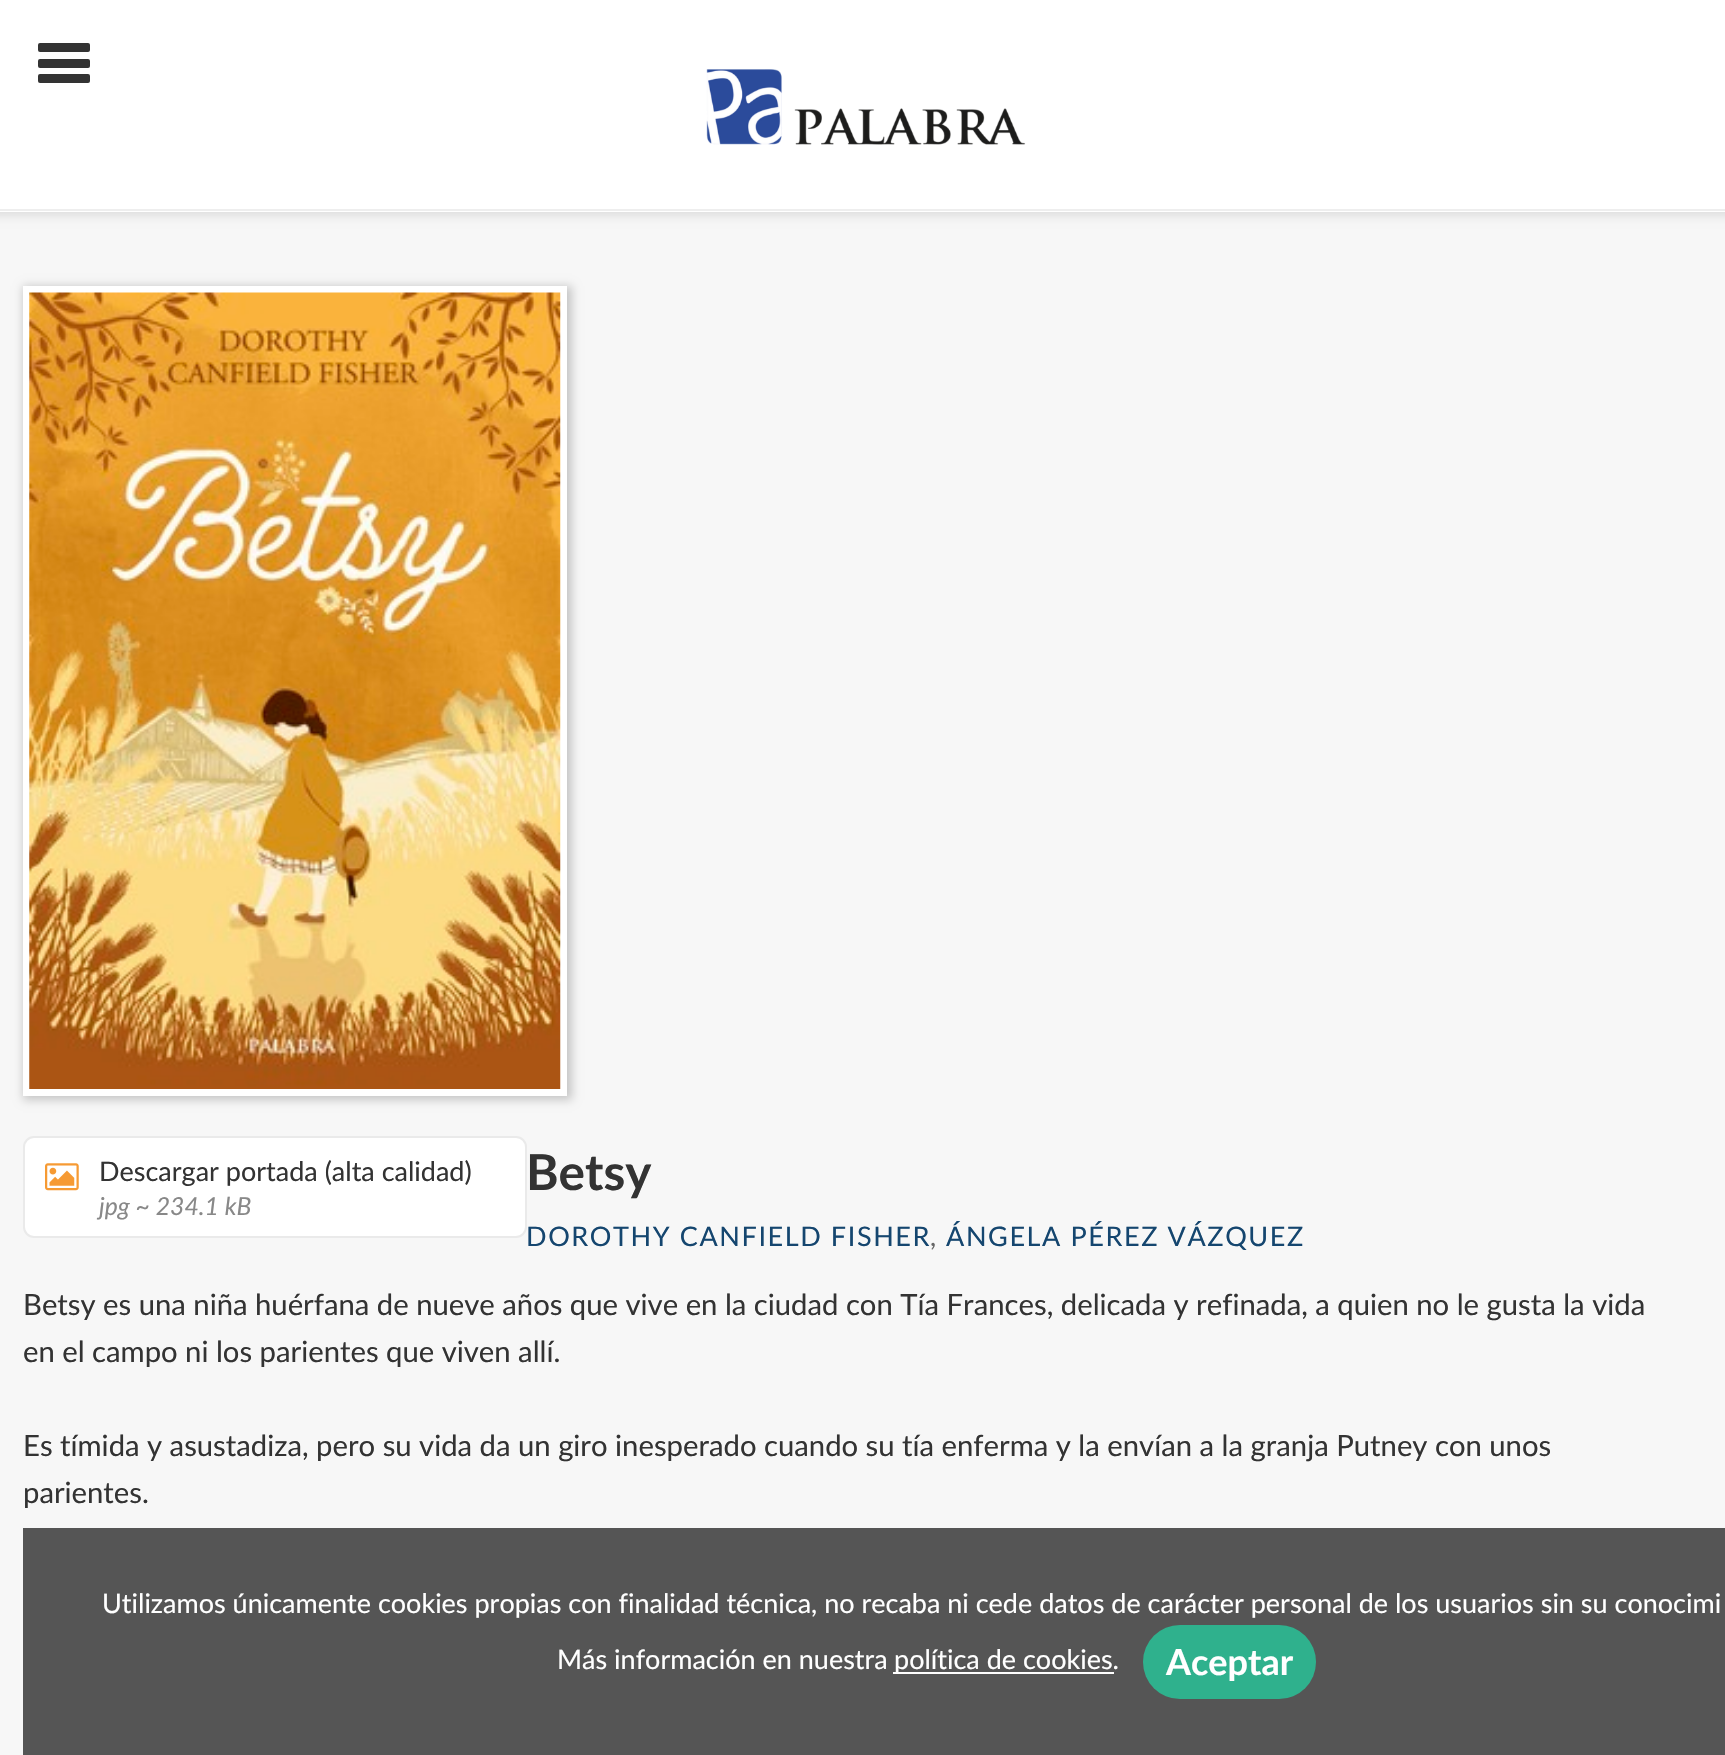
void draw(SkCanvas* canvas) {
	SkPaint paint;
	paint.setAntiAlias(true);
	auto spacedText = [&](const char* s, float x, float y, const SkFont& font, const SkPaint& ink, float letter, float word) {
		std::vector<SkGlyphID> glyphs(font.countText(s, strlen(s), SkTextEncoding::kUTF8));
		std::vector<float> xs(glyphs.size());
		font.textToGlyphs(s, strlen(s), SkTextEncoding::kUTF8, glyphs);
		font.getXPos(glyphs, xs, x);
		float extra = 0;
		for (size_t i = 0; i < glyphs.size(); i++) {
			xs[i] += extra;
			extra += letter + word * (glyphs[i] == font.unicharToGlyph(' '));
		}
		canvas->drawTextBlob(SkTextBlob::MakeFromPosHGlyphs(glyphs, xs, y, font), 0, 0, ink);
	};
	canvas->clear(0xfff7f7f7);
	paint.setColor(0x1a000000);
	paint.setMaskFilter(SkMaskFilter::MakeBlur(kNormal_SkBlurStyle, 4.5));
	canvas->drawRect(SkRect::MakeXYWH(-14, 5, 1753, 211), paint);
	paint.setMaskFilter(nullptr);
	paint.setColor(0xffffffff);
	canvas->drawRect(SkRect::MakeXYWH(0, 0, 1725, 212), paint);
	paint.setColor(0xffeeeeee);
	canvas->drawRect(SkRect::MakeXYWH(0, 209, 1725, 2), paint);
	paint.setColor(0xff333333);
	canvas->drawRoundRect(SkRect::MakeXYWH(38, 43, 52, 9), 2, 2, paint);
	canvas->drawRoundRect(SkRect::MakeXYWH(38, 59, 52, 9), 2, 2, paint);
	canvas->drawRoundRect(SkRect::MakeXYWH(38, 74, 52, 9), 2, 2, paint);
	canvas->drawImageRect(SkImages::DeferredFromEncodedData(SkData::MakeFromFileName("img1.png")), SkRect::MakeXYWH(706, 69, 320, 76), SkSamplingOptions());
	SkFont f1(fontMgr->matchFamilyStyle("Lato", SkFontStyle::Bold()), 49.5);
	f1.setSubpixel(true);
	canvas->drawString("Betsy", 526, 1190, f1, paint);
	SkFont f2(fontMgr->matchFamilyStyle("Lato", SkFontStyle::Normal()), 27);
	f2.setSubpixel(true);
	paint.setColor(0xff15466f);
	spacedText("DOROTHY CANFIELD FISHER", 526, 1246, f2, paint, 1.6, 0);
	paint.setColor(0xff666666);
	spacedText(",", 930, 1246, f2, paint, 1.6, 0);
	paint.setColor(0xff15466f);
	spacedText("ÁNGELA PÉREZ VÁZQUEZ", 946, 1246, f2, paint, 1.6, 0);
	SkFont f3(fontMgr->matchFamilyStyle("Lato", SkFontStyle::Normal()), 29.25);
	f3.setSubpixel(true);
	paint.setColor(0xff333333);
	canvas->drawString("Betsy es una niña huérfana de nueve años que vive en la ciudad con Tía Frances, delicada y refinada, a quien no le gusta la vida", 23, 1315, f3, paint);
	canvas->drawString("en el campo ni los parientes que viven allí.", 23, 1362, f3, paint);
	canvas->drawString("Es tímida y asustadiza, pero su vida da un giro inesperado cuando su tía enferma y la envían a la granja Putney con unos", 23, 1456, f3, paint);
	canvas->drawString("parientes.", 23, 1503, f3, paint);
	paint.setColor(0x33000000);
	paint.setMaskFilter(SkMaskFilter::MakeBlur(kNormal_SkBlurStyle, 4.5));
	canvas->drawRect(SkRect::MakeXYWH(23, 286, 549, 814), paint);
	paint.setMaskFilter(nullptr);
	paint.setColor(0xffffffff);
	canvas->drawRect(SkRect::MakeXYWH(23, 286, 544, 810), paint);
	canvas->drawImageRect(SkImages::DeferredFromEncodedData(SkData::MakeFromFileName("img2.png")), SkRect::MakeXYWH(29, 292, 532, 797), SkSamplingOptions());
	canvas->drawRoundRect(SkRect::MakeXYWH(24, 1137, 502, 100), 10, 10, paint);
	paint.setStroke(true);
	paint.setStrokeWidth(2);
	paint.setColor(0xffeaeaea);
	canvas->drawRoundRect(SkRect::MakeXYWH(24, 1137, 502, 100), 10, 10, paint);
	canvas->drawImageRect(SkImages::DeferredFromEncodedData(SkData::MakeFromFileName("img3.png")), SkRect::MakeXYWH(45, 1163, 34, 28), SkSamplingOptions());
	paint.setStroke(false);
	paint.setColor(0xff333333);
	canvas->drawString("Descargar portada (alta calidad)", 99, 1181, f2, paint);
	SkFont f4(fontMgr->matchFamilyStyle("Lato", SkFontStyle::Italic()), 24.75);
	f4.setSubpixel(true);
	paint.setColor(0xff888888);
	canvas->drawString("jpg ~ 234.1 kB", 99, 1215, f4, paint);
	paint.setColor(0xff555555);
	canvas->drawRect(SkRect::MakeXYWH(23, 1528, 1702, 227), paint);
	paint.setColor(0xffffffff);
	canvas->drawString("Utilizamos únicamente cookies propias con finalidad técnica, no recaba ni cede datos de carácter personal de los usuarios sin su conocimi", 102, 1613, f2, paint);
	canvas->drawString("Más información en nuestra", 557, 1669, f2, paint);
	canvas->drawRect(SkRect::MakeXYWH(893, 1672, 221, 2), paint);
	canvas->drawString("política de cookies.", 894, 1669, f2, paint);
	paint.setColor(0xff2fb18d);
	canvas->drawRoundRect(SkRect::MakeXYWH(1143, 1625, 173, 74), 37, 37, paint);
	SkFont f5(fontMgr->matchFamilyStyle("Lato", SkFontStyle::Bold()), 36);
	f5.setSubpixel(true);
	paint.setColor(0xffffffff);
	canvas->drawString("Aceptar", 1166, 1675, f5, paint);
}
